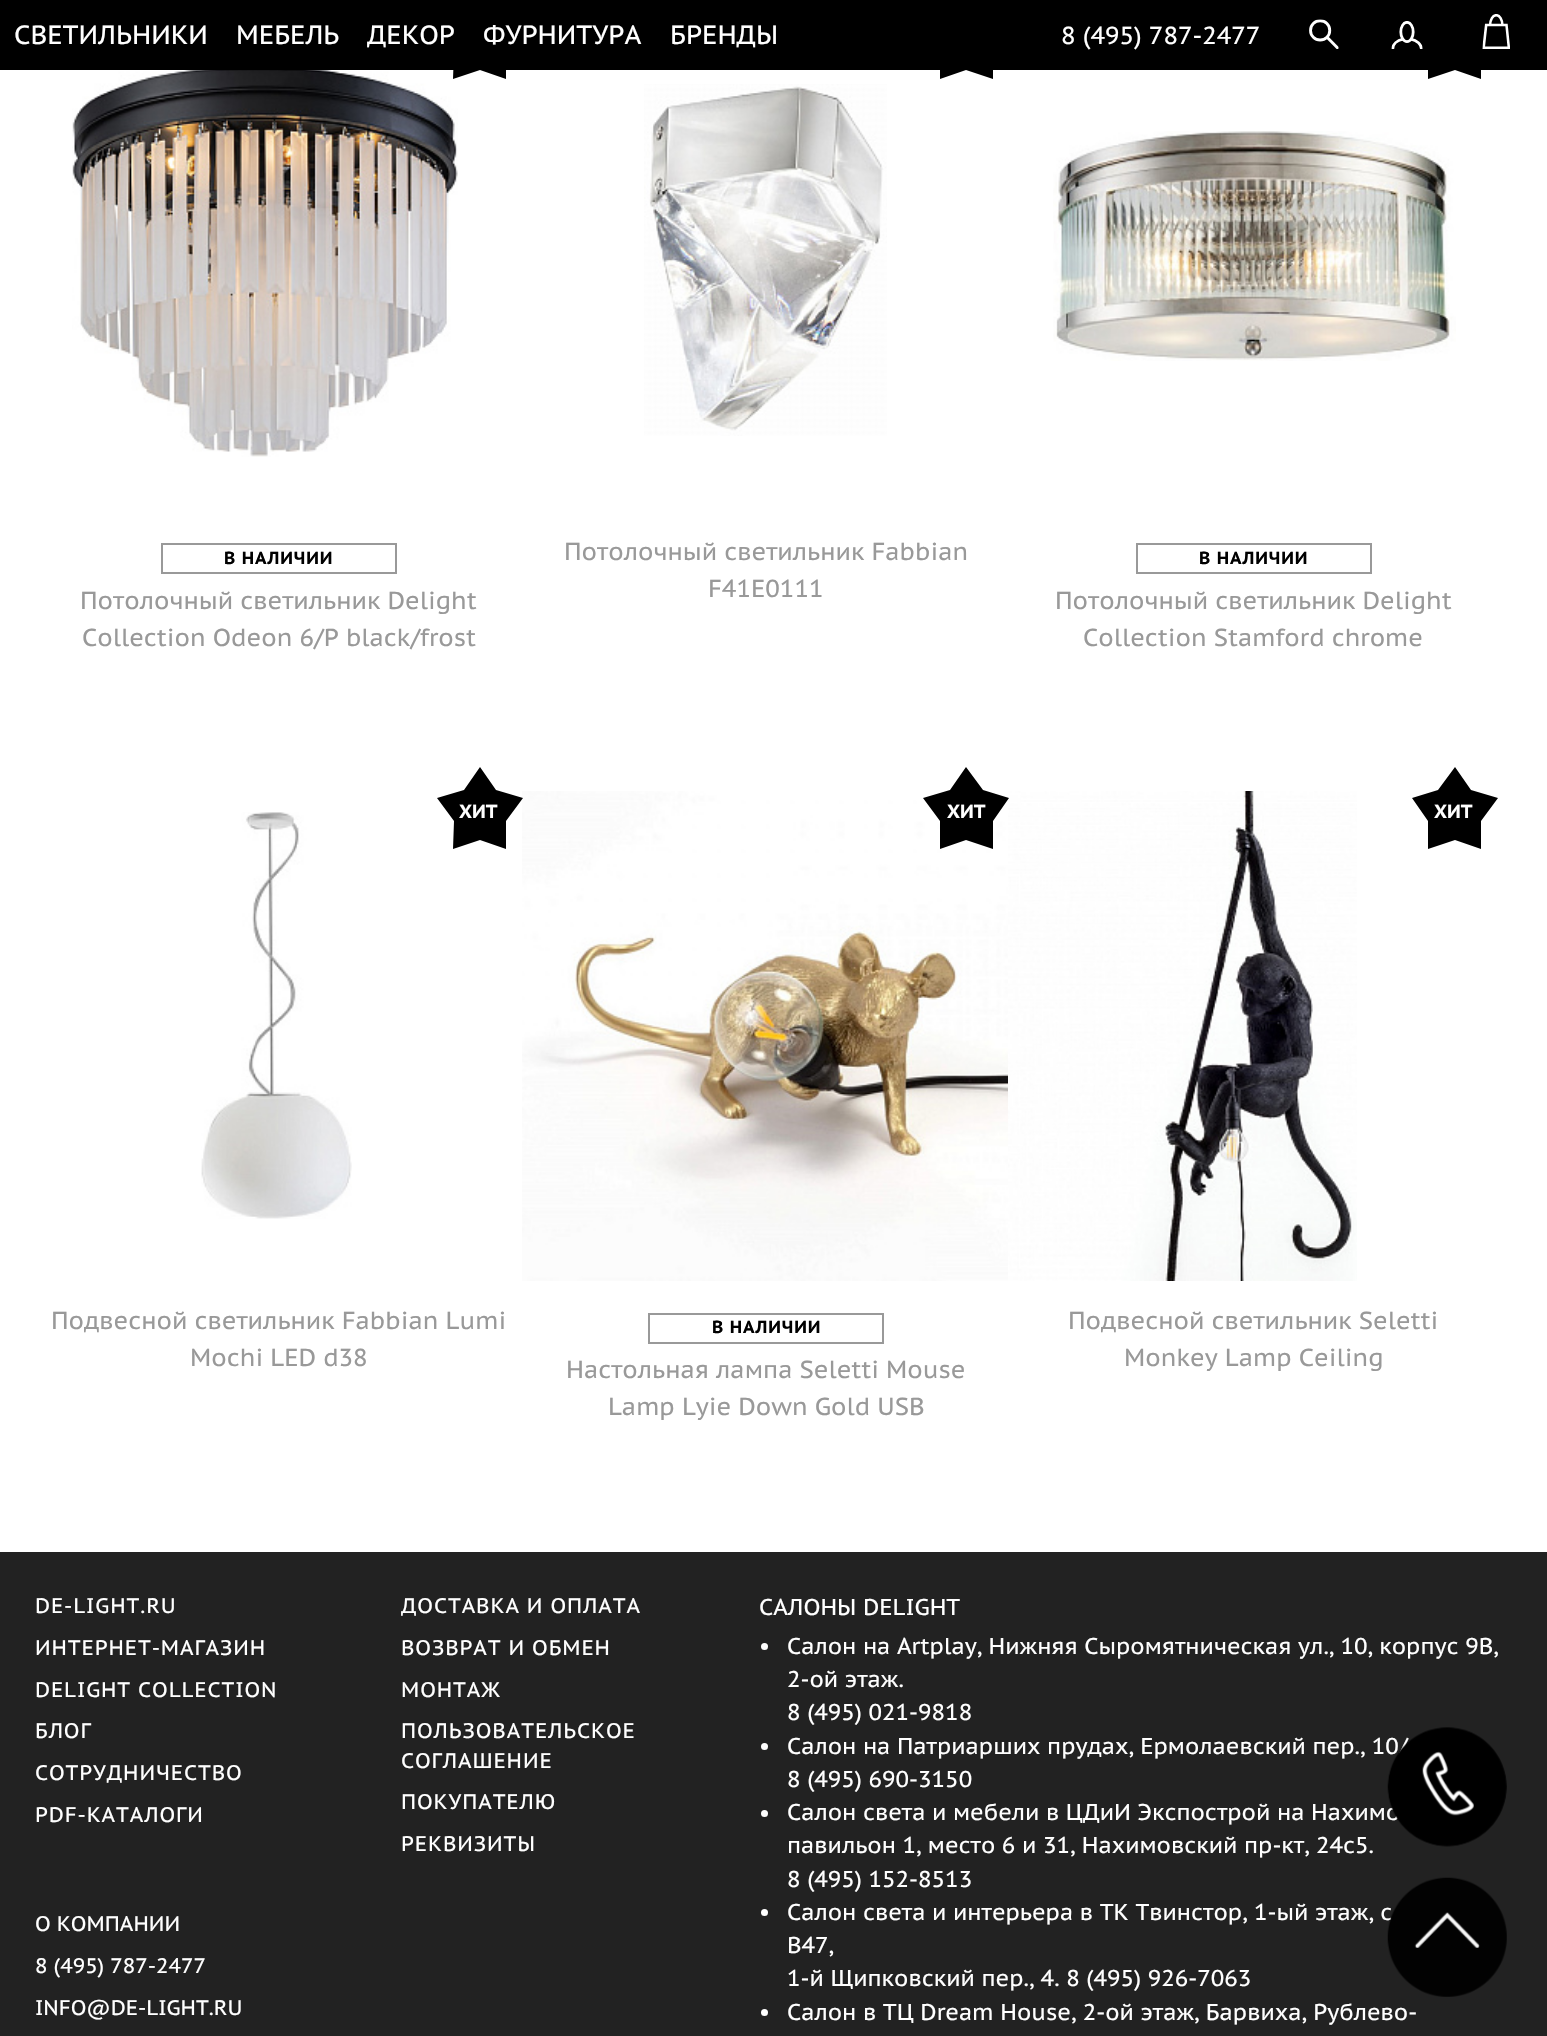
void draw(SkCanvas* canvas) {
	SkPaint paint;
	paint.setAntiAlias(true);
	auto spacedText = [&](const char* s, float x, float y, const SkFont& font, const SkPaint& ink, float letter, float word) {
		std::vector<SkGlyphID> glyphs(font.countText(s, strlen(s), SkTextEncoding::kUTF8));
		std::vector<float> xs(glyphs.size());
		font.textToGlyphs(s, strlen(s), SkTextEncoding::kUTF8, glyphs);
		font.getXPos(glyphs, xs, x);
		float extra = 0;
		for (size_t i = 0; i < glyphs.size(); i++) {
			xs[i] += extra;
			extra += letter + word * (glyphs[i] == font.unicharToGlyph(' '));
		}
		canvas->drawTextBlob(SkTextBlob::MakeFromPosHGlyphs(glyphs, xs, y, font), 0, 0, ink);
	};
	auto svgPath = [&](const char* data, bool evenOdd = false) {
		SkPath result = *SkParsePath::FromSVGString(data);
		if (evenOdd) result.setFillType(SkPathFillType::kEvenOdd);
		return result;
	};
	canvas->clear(0xffffffff);
	canvas->drawImageRect(SkImages::DeferredFromEncodedData(SkData::MakeFromFileName("img1.png")), SkRect::MakeXYWH(72, 70, 386, 387), SkSamplingOptions());
	paint.setColor(0xff000000);
	canvas->drawPath(svgPath("M480 70L453 79L454 51L437 28L464 20L480-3L496 20L523 28L506 51V79Z"), paint);
	canvas->drawPath(svgPath("M966 70L940 79V51L923 28L950 20L966-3L983 20L1009 28L993 51V79Z"), paint);
	canvas->drawPath(svgPath("M1455 70L1428 79V51L1412 28L1438 20L1455-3L1471 20L1498 28L1481 51V79Z"), paint);
	canvas->drawRect(SkRect::MakeXYWH(0, 0, 1547, 70), paint);
	SkFont f1(fontMgr->matchFamilyStyle("PT Sans Caption", SkFontStyle::Normal()), 26.25);
	f1.setSubpixel(true);
	paint.setColor(0xffffffff);
	canvas->drawString("СВЕТИЛЬНИКИ", 14, 44, f1, paint);
	canvas->drawString("МЕБЕЛЬ", 236, 44, f1, paint);
	canvas->drawString("ДЕКОР", 367, 44, f1, paint);
	canvas->drawString("ФУРНИТУРА", 483, 44, f1, paint);
	canvas->drawString("БРЕНДЫ", 670, 44, f1, paint);
	paint.setStroke(true);
	paint.setStrokeWidth(2);
	paint.setColor(0xff999999);
	canvas->drawRect(SkRect::MakeXYWH(162, 544, 234, 29), paint);
	SkFont f2(fontMgr->matchFamilyStyle("PT Sans Caption", SkFontStyle::Bold()), 17.5);
	f2.setSubpixel(true);
	paint.setStroke(false);
	paint.setColor(0xff000000);
	spacedText("В НАЛИЧИИ", 224, 564, f2, paint, 0.9, 0);
	SkFont f3(fontMgr->matchFamilyStyle("PT Sans Caption", SkFontStyle::Normal()), 24.5);
	f3.setSubpixel(true);
	paint.setColor(0xff999999);
	canvas->drawString("Потолочный светильник Delight", 80, 609, f3, paint);
	canvas->drawString("Collection Odeon 6/P black/frost", 82, 646, f3, paint);
	canvas->drawImageRect(SkImages::DeferredFromEncodedData(SkData::MakeFromFileName("img2.png")), SkRect::MakeXYWH(644, 84, 243, 352), SkSamplingOptions());
	canvas->drawString("Потолочный светильник Fabbian", 564, 560, f3, paint);
	canvas->drawString("F41E0111", 708, 597, f3, paint);
	canvas->drawImageRect(SkImages::DeferredFromEncodedData(SkData::MakeFromFileName("img3.png")), SkRect::MakeXYWH(1053, 131, 403, 230), SkSamplingOptions());
	paint.setStroke(true);
	canvas->drawRect(SkRect::MakeXYWH(1137, 544, 234, 29), paint);
	paint.setStroke(false);
	paint.setColor(0xff000000);
	spacedText("В НАЛИЧИИ", 1199, 564, f2, paint, 0.9, 0);
	paint.setColor(0xff999999);
	canvas->drawString("Потолочный светильник Delight", 1055, 609, f3, paint);
	canvas->drawString("Collection Stamford chrome", 1083, 646, f3, paint);
	canvas->drawImageRect(SkImages::DeferredFromEncodedData(SkData::MakeFromFileName("img4.png")), SkRect::MakeXYWH(201, 812, 151, 407), SkSamplingOptions());
	canvas->drawImageRect(SkImages::DeferredFromEncodedData(SkData::MakeFromFileName("img5.png")), SkRect::MakeXYWH(522, 791, 486, 490), SkSamplingOptions());
	paint.setColor(0xff000000);
	canvas->drawPath(svgPath("M480 840L453 849L454 821L437 798L464 790L480 767L496 790L523 798L506 821V849Z"), paint);
	SkFont f4(fontMgr->matchFamilyStyle("PT Sans Caption", SkFontStyle::Bold()), 19);
	f4.setSubpixel(true);
	paint.setColor(0xffffffff);
	canvas->drawString("ХИТ", 459, 818, f4, paint);
	paint.setColor(0xff999999);
	canvas->drawString("Подвесной светильник Fabbian Lumi", 51, 1329, f3, paint);
	canvas->drawString("Mochi LED d38", 190, 1366, f3, paint);
	canvas->drawImageRect(SkImages::DeferredFromEncodedData(SkData::MakeFromFileName("img6.png")), SkRect::MakeXYWH(1008, 791, 349, 490), SkSamplingOptions());
	paint.setColor(0xff000000);
	canvas->drawPath(svgPath("M966 840L940 849V821L923 798L950 790L966 767L983 790L1009 798L993 821V849Z"), paint);
	paint.setColor(0xffffffff);
	canvas->drawString("ХИТ", 947, 818, f4, paint);
	paint.setStroke(true);
	paint.setColor(0xff999999);
	canvas->drawRect(SkRect::MakeXYWH(649, 1314, 234, 29), paint);
	paint.setStroke(false);
	paint.setColor(0xff000000);
	spacedText("В НАЛИЧИИ", 712, 1333, f2, paint, 0.9, 0);
	paint.setColor(0xff999999);
	canvas->drawString("Настольная лампа Seletti Mouse", 566, 1378, f3, paint);
	canvas->drawString("Lamp Lyie Down Gold USB", 608, 1415, f3, paint);
	paint.setColor(0xff000000);
	canvas->drawPath(svgPath("M1455 840L1428 849V821L1412 798L1438 790L1455 767L1471 790L1498 798L1481 821V849Z"), paint);
	paint.setColor(0xffffffff);
	canvas->drawString("ХИТ", 1434, 818, f4, paint);
	paint.setColor(0xff999999);
	canvas->drawString("Подвесной светильник Seletti", 1068, 1329, f3, paint);
	canvas->drawString("Monkey Lamp Ceiling", 1124, 1366, f3, paint);
	paint.setColor(0xff222222);
	canvas->drawRect(SkRect::MakeXYWH(0, 1552, 1547, 484), paint);
	SkFont f5(fontMgr->matchFamilyStyle("PT Sans Caption", SkFontStyle::Normal()), 21);
	f5.setSubpixel(true);
	paint.setColor(0xffffffff);
	spacedText("DE-LIGHT.RU", 35, 1613, f5, paint, 0.9, 0);
	spacedText("ДОСТАВКА И ОПЛАТА", 401, 1613, f5, paint, 0.9, 0);
	spacedText("ИНТЕРНЕТ-МАГАЗИН", 35, 1655, f5, paint, 0.9, 0);
	spacedText("ВОЗВРАТ И ОБМЕН", 401, 1655, f5, paint, 0.9, 0);
	spacedText("DELIGHT COLLECTION", 35, 1697, f5, paint, 0.9, 0);
	spacedText("МОНТАЖ", 401, 1697, f5, paint, 0.9, 0);
	spacedText("БЛОГ", 35, 1738, f5, paint, 0.9, 0);
	spacedText("ПОЛЬЗОВАТЕЛЬСКОЕ", 401, 1738, f5, paint, 0.9, 0);
	spacedText("СОГЛАШЕНИЕ", 401, 1768, f5, paint, 0.9, 0);
	spacedText("СОТРУДНИЧЕСТВО", 35, 1780, f5, paint, 0.9, 0);
	spacedText("ПОКУПАТЕЛЮ", 401, 1809, f5, paint, 0.9, 0);
	spacedText("PDF-КАТАЛОГИ", 35, 1822, f5, paint, 0.9, 0);
	spacedText("РЕКВИЗИТЫ", 401, 1851, f5, paint, 0.9, 0);
	canvas->drawString("О КОМПАНИИ", 35, 1931, f5, paint);
	canvas->drawString("8 (495) 787-2477", 35, 1973, f5, paint);
	canvas->drawString("INFO@DE-LIGHT.RU", 35, 2015, f5, paint);
	SkFont f6(fontMgr->matchFamilyStyle("PT Sans Caption", SkFontStyle::Normal()), 22.75);
	f6.setSubpixel(true);
	canvas->drawString("САЛОНЫ DELIGHT", 759, 1615, f6, paint);
	canvas->drawCircle(764.5, 1646.5, 3.5, paint);
	canvas->drawString("Салон на Artplay, Нижняя Сыромятническая ул., 10, корпус 9B,", 787, 1654, f6, paint);
	canvas->drawString("2-ой этаж.", 787, 1687, f6, paint);
	canvas->drawString("8 (495) 021-9818", 787, 1720, f6, paint);
	canvas->drawCircle(764.5, 1746.5, 3.5, paint);
	canvas->drawString("Салон на Патриарших прудах, Ермолаевский пер., 10/", 787, 1754, f6, paint);
	canvas->drawString("8 (495) 690-3150", 787, 1787, f6, paint);
	canvas->drawCircle(764.5, 1813.5, 3.5, paint);
	canvas->drawString("Салон света и мебели в ЦДиИ Экспострой на Нахимо", 787, 1820, f6, paint);
	canvas->drawString("павильон 1, место 6 и 31, Нахимовский пр-кт, 24с5.", 787, 1853, f6, paint);
	canvas->drawString("8 (495) 152-8513", 787, 1887, f6, paint);
	canvas->drawCircle(764.5, 1912.5, 3.5, paint);
	canvas->drawString("Салон света и интерьера в ТК Твинстор, 1-ый этаж, с", 787, 1920, f6, paint);
	canvas->drawString("B47,", 787, 1953, f6, paint);
	canvas->drawString("1-й Щипковский пер., 4. 8 (495) 926-7063", 787, 1986, f6, paint);
	canvas->drawCircle(764.5, 2012.5, 3.5, paint);
	canvas->drawString("Салон в ТЦ Dream House, 2-ой этаж, Барвиха, Рублево-", 787, 2020, f6, paint);
	canvas->drawImageRect(SkImages::DeferredFromEncodedData(SkData::MakeFromFileName("img7.png")), SkRect::MakeXYWH(1387, 1727, 120, 120), SkSamplingOptions());
	canvas->drawImageRect(SkImages::DeferredFromEncodedData(SkData::MakeFromFileName("img8.png")), SkRect::MakeXYWH(1387, 1877, 120, 120), SkSamplingOptions());
	canvas->drawString("8 (495) 787-2477", 1061, 44, f3, paint);
	canvas->drawImageRect(SkImages::DeferredFromEncodedData(SkData::MakeFromFileName("img9.png")), SkRect::MakeXYWH(1309, 19, 30, 30), SkSamplingOptions());
	canvas->drawImageRect(SkImages::DeferredFromEncodedData(SkData::MakeFromFileName("img10.png")), SkRect::MakeXYWH(1391, 21, 32, 28), SkSamplingOptions());
	canvas->drawImageRect(SkImages::DeferredFromEncodedData(SkData::MakeFromFileName("img11.png")), SkRect::MakeXYWH(1482, 14, 28, 35), SkSamplingOptions());
}
